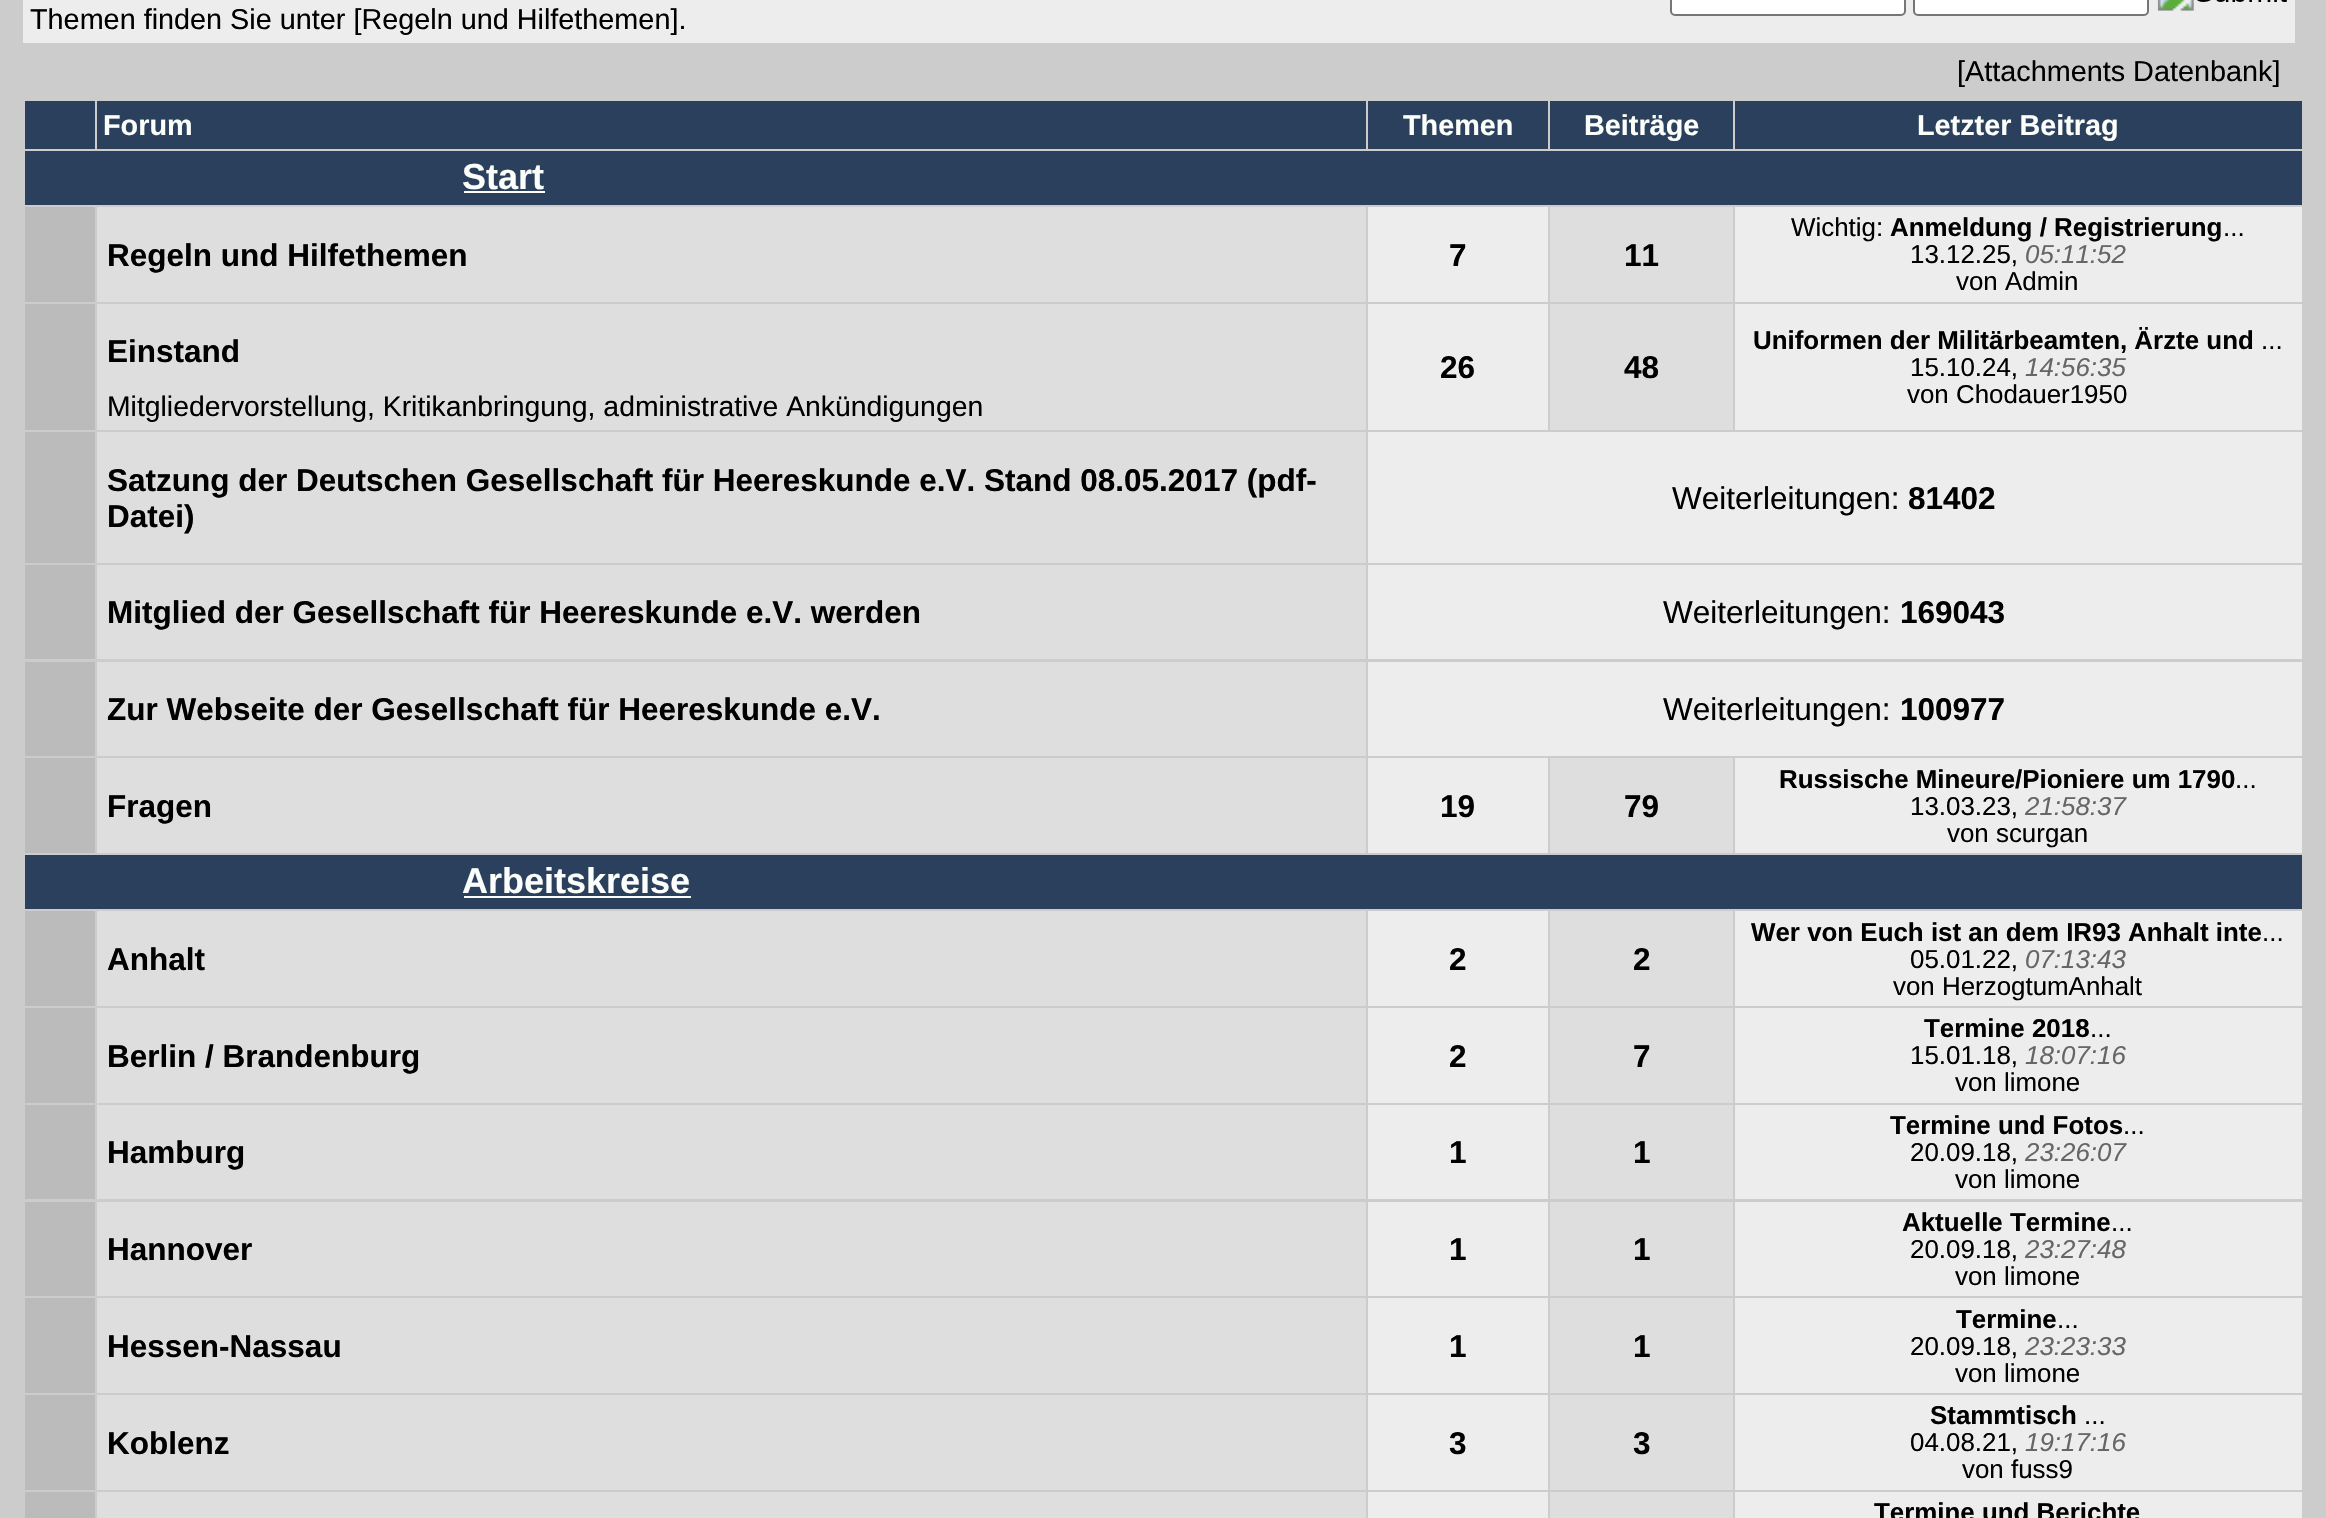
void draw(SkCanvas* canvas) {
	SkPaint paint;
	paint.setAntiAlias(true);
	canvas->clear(0xffcccccc);
	paint.setColor(0xffededed);
	canvas->drawRect(SkRect::MakeXYWH(23, 0, 2272, 43), paint);
	paint.setColor(0xffffffff);
	canvas->drawRoundRect(SkRect::MakeXYWH(1671, -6, 234, 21), 4, 4, paint);
	paint.setStroke(true);
	paint.setStrokeWidth(2);
	paint.setColor(0xff767676);
	canvas->drawRoundRect(SkRect::MakeXYWH(1671, -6, 234, 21), 4, 4, paint);
	paint.setStroke(false);
	paint.setColor(0xffffffff);
	canvas->drawRoundRect(SkRect::MakeXYWH(1914, -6, 234, 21), 4, 4, paint);
	paint.setStroke(true);
	paint.setColor(0xff767676);
	canvas->drawRoundRect(SkRect::MakeXYWH(1914, -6, 234, 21), 4, 4, paint);
	canvas->drawImageRect(SkImages::DeferredFromEncodedData(SkData::MakeFromFileName("img1.png")), SkRect::MakeXYWH(2157, 0, 130, 11), SkSamplingOptions());
	SkFont f1(fontMgr->matchFamilyStyle("Liberation Sans", SkFontStyle::Normal()), 28.8);
	f1.setSubpixel(true);
	paint.setStroke(false);
	paint.setColor(0xff000000);
	canvas->drawString("Themen finden Sie unter [Regeln und Hilfethemen].", 30, 29, f1, paint);
	canvas->drawString("[Attachments Datenbank]", 1957, 81, f1, paint);
	paint.setColor(0xff2b405d);
	canvas->drawRect(SkRect::MakeXYWH(25, 101, 70, 48), paint);
	canvas->drawRect(SkRect::MakeXYWH(97, 101, 1269, 48), paint);
	SkFont f2(fontMgr->matchFamilyStyle("Liberation Sans", SkFontStyle::Bold()), 28.8);
	f2.setSubpixel(true);
	paint.setColor(0xfffcfefb);
	canvas->drawString("Forum", 103, 135, f2, paint);
	paint.setColor(0xff2b405d);
	canvas->drawRect(SkRect::MakeXYWH(1368, 101, 180, 48), paint);
	paint.setColor(0xfffcfefb);
	canvas->drawString("Themen", 1403, 135, f2, paint);
	paint.setColor(0xff2b405d);
	canvas->drawRect(SkRect::MakeXYWH(1550, 101, 183, 48), paint);
	paint.setColor(0xfffcfefb);
	canvas->drawString("Beiträge", 1584, 135, f2, paint);
	paint.setColor(0xff2b405d);
	canvas->drawRect(SkRect::MakeXYWH(1735, 101, 567, 48), paint);
	paint.setColor(0xfffcfefb);
	canvas->drawString("Letzter Beitrag", 1917, 135, f2, paint);
	paint.setColor(0xff2b405d);
	canvas->drawRect(SkRect::MakeXYWH(25, 151, 2277, 54), paint);
	SkFont f3(fontMgr->matchFamilyStyle("Liberation Sans", SkFontStyle::Bold()), 36);
	f3.setSubpixel(true);
	paint.setColor(0xfffcfefb);
	canvas->drawString("Start", 462, 189, f3, paint);
	canvas->drawRect(SkRect::MakeXYWH(464, 191, 81, 2), paint);
	paint.setColor(0xffbbbbbb);
	canvas->drawRect(SkRect::MakeXYWH(25, 207, 70, 95), paint);
	paint.setColor(0xffdedede);
	canvas->drawRect(SkRect::MakeXYWH(97, 207, 1269, 95), paint);
	SkFont f4(fontMgr->matchFamilyStyle("Liberation Sans", SkFontStyle::Bold()), 31.5);
	f4.setSubpixel(true);
	paint.setColor(0xff000000);
	canvas->drawString("Regeln und Hilfethemen", 107, 266, f4, paint);
	paint.setColor(0xffededed);
	canvas->drawRect(SkRect::MakeXYWH(1368, 207, 180, 95), paint);
	paint.setColor(0xff000000);
	canvas->drawString("7", 1449, 266, f4, paint);
	paint.setColor(0xffdedede);
	canvas->drawRect(SkRect::MakeXYWH(1550, 207, 183, 95), paint);
	paint.setColor(0xff000000);
	canvas->drawString("11", 1624, 266, f4, paint);
	paint.setColor(0xffededed);
	canvas->drawRect(SkRect::MakeXYWH(1735, 207, 567, 95), paint);
	SkFont f5(fontMgr->matchFamilyStyle("Liberation Sans", SkFontStyle::Normal()), 25.9);
	f5.setSubpixel(true);
	paint.setColor(0xff000000);
	canvas->drawString("Wichtig:", 1791, 236, f5, paint);
	SkFont f6(fontMgr->matchFamilyStyle("Liberation Sans", SkFontStyle::Bold()), 25.9);
	f6.setSubpixel(true);
	canvas->drawString("Anmeldung / Registrierung", 1890, 236, f6, paint);
	canvas->drawString("...", 2223, 236, f5, paint);
	canvas->drawString("13.12.25,", 1910, 263, f5, paint);
	SkFont f7(fontMgr->matchFamilyStyle("Liberation Sans", SkFontStyle::Italic()), 25.9);
	f7.setSubpixel(true);
	paint.setColor(0xff666666);
	canvas->drawString("05:11:52", 2025, 263, f7, paint);
	paint.setColor(0xff000000);
	canvas->drawString("von Admin", 1956, 290, f5, paint);
	paint.setColor(0xffbbbbbb);
	canvas->drawRect(SkRect::MakeXYWH(25, 304, 70, 126), paint);
	paint.setColor(0xffdedede);
	canvas->drawRect(SkRect::MakeXYWH(97, 304, 1269, 126), paint);
	paint.setColor(0xff000000);
	canvas->drawString("Einstand", 107, 362, f4, paint);
	SkFont f8(fontMgr->matchFamilyStyle("Liberation Sans", SkFontStyle::Normal()), 28.35);
	f8.setSubpixel(true);
	canvas->drawString("Mitgliedervorstellung, Kritikanbringung, administrative Ankündigungen", 107, 416, f8, paint);
	paint.setColor(0xffededed);
	canvas->drawRect(SkRect::MakeXYWH(1368, 304, 180, 126), paint);
	paint.setColor(0xff000000);
	canvas->drawString("26", 1440, 378, f4, paint);
	paint.setColor(0xffdedede);
	canvas->drawRect(SkRect::MakeXYWH(1550, 304, 183, 126), paint);
	paint.setColor(0xff000000);
	canvas->drawString("48", 1624, 378, f4, paint);
	paint.setColor(0xffededed);
	canvas->drawRect(SkRect::MakeXYWH(1735, 304, 567, 126), paint);
	paint.setColor(0xff000000);
	canvas->drawString("Uniformen der Militärbeamten, Ärzte und", 1753, 349, f6, paint);
	canvas->drawString("...", 2261, 349, f5, paint);
	canvas->drawString("15.10.24,", 1910, 376, f5, paint);
	paint.setColor(0xff666666);
	canvas->drawString("14:56:35", 2025, 376, f7, paint);
	paint.setColor(0xff000000);
	canvas->drawString("von Chodauer1950", 1907, 403, f5, paint);
	paint.setColor(0xffbbbbbb);
	canvas->drawRect(SkRect::MakeXYWH(25, 432, 70, 131), paint);
	paint.setColor(0xffdedede);
	canvas->drawRect(SkRect::MakeXYWH(97, 432, 1269, 131), paint);
	paint.setColor(0xff000000);
	canvas->drawString("Satzung der Deutschen Gesellschaft für Heereskunde e.V. Stand 08.05.2017 (pdf-", 107, 491, f4, paint);
	canvas->drawString("Datei)", 107, 527, f4, paint);
	paint.setColor(0xffededed);
	canvas->drawRect(SkRect::MakeXYWH(1368, 432, 934, 131), paint);
	SkFont f9(fontMgr->matchFamilyStyle("Liberation Sans", SkFontStyle::Normal()), 31.5);
	f9.setSubpixel(true);
	paint.setColor(0xff000000);
	canvas->drawString("Weiterleitungen:", 1672, 509, f9, paint);
	canvas->drawString("81402", 1908, 509, f4, paint);
	paint.setColor(0xffbbbbbb);
	canvas->drawRect(SkRect::MakeXYWH(25, 565, 70, 94), paint);
	paint.setColor(0xffdedede);
	canvas->drawRect(SkRect::MakeXYWH(97, 565, 1269, 94), paint);
	paint.setColor(0xff000000);
	canvas->drawString("Mitglied der Gesellschaft für Heereskunde e.V. werden", 107, 623, f4, paint);
	paint.setColor(0xffededed);
	canvas->drawRect(SkRect::MakeXYWH(1368, 565, 934, 94), paint);
	paint.setColor(0xff000000);
	canvas->drawString("Weiterleitungen:", 1663, 623, f9, paint);
	canvas->drawString("169043", 1900, 623, f4, paint);
	paint.setColor(0xffbbbbbb);
	canvas->drawRect(SkRect::MakeXYWH(25, 662, 70, 94), paint);
	paint.setColor(0xffdedede);
	canvas->drawRect(SkRect::MakeXYWH(97, 662, 1269, 94), paint);
	paint.setColor(0xff000000);
	canvas->drawString("Zur Webseite der Gesellschaft für Heereskunde e.V.", 107, 720, f4, paint);
	paint.setColor(0xffededed);
	canvas->drawRect(SkRect::MakeXYWH(1368, 662, 934, 94), paint);
	paint.setColor(0xff000000);
	canvas->drawString("Weiterleitungen:", 1663, 720, f9, paint);
	canvas->drawString("100977", 1900, 720, f4, paint);
	paint.setColor(0xffbbbbbb);
	canvas->drawRect(SkRect::MakeXYWH(25, 758, 70, 95), paint);
	paint.setColor(0xffdedede);
	canvas->drawRect(SkRect::MakeXYWH(97, 758, 1269, 95), paint);
	paint.setColor(0xff000000);
	canvas->drawString("Fragen", 107, 817, f4, paint);
	paint.setColor(0xffededed);
	canvas->drawRect(SkRect::MakeXYWH(1368, 758, 180, 95), paint);
	paint.setColor(0xff000000);
	canvas->drawString("19", 1440, 817, f4, paint);
	paint.setColor(0xffdedede);
	canvas->drawRect(SkRect::MakeXYWH(1550, 758, 183, 95), paint);
	paint.setColor(0xff000000);
	canvas->drawString("79", 1624, 817, f4, paint);
	paint.setColor(0xffededed);
	canvas->drawRect(SkRect::MakeXYWH(1735, 758, 567, 95), paint);
	paint.setColor(0xff000000);
	canvas->drawString("Russische Mineure/Pioniere um 1790", 1779, 788, f6, paint);
	canvas->drawString("...", 2235, 788, f5, paint);
	canvas->drawString("13.03.23,", 1910, 815, f5, paint);
	paint.setColor(0xff666666);
	canvas->drawString("21:58:37", 2025, 815, f7, paint);
	paint.setColor(0xff000000);
	canvas->drawString("von scurgan", 1947, 842, f5, paint);
	paint.setColor(0xff2b405d);
	canvas->drawRect(SkRect::MakeXYWH(25, 855, 2277, 54), paint);
	paint.setColor(0xfffcfefb);
	canvas->drawString("Arbeitskreise", 462, 893, f3, paint);
	canvas->drawRect(SkRect::MakeXYWH(464, 896, 227, 2), paint);
	paint.setColor(0xffbbbbbb);
	canvas->drawRect(SkRect::MakeXYWH(25, 911, 70, 95), paint);
	paint.setColor(0xffdedede);
	canvas->drawRect(SkRect::MakeXYWH(97, 911, 1269, 95), paint);
	paint.setColor(0xff000000);
	canvas->drawString("Anhalt", 107, 970, f4, paint);
	paint.setColor(0xffededed);
	canvas->drawRect(SkRect::MakeXYWH(1368, 911, 180, 95), paint);
	paint.setColor(0xff000000);
	canvas->drawString("2", 1449, 970, f4, paint);
	paint.setColor(0xffdedede);
	canvas->drawRect(SkRect::MakeXYWH(1550, 911, 183, 95), paint);
	paint.setColor(0xff000000);
	canvas->drawString("2", 1633, 970, f4, paint);
	paint.setColor(0xffededed);
	canvas->drawRect(SkRect::MakeXYWH(1735, 911, 567, 95), paint);
	paint.setColor(0xff000000);
	canvas->drawString("Wer von Euch ist an dem IR93 Anhalt inte", 1751, 941, f6, paint);
	canvas->drawString("...", 2262, 941, f5, paint);
	canvas->drawString("05.01.22,", 1910, 968, f5, paint);
	paint.setColor(0xff666666);
	canvas->drawString("07:13:43", 2025, 968, f7, paint);
	paint.setColor(0xff000000);
	canvas->drawString("von HerzogtumAnhalt", 1893, 995, f5, paint);
	paint.setColor(0xffbbbbbb);
	canvas->drawRect(SkRect::MakeXYWH(25, 1008, 70, 95), paint);
	paint.setColor(0xffdedede);
	canvas->drawRect(SkRect::MakeXYWH(97, 1008, 1269, 95), paint);
	paint.setColor(0xff000000);
	canvas->drawString("Berlin / Brandenburg", 107, 1067, f4, paint);
	paint.setColor(0xffededed);
	canvas->drawRect(SkRect::MakeXYWH(1368, 1008, 180, 95), paint);
	paint.setColor(0xff000000);
	canvas->drawString("2", 1449, 1067, f4, paint);
	paint.setColor(0xffdedede);
	canvas->drawRect(SkRect::MakeXYWH(1550, 1008, 183, 95), paint);
	paint.setColor(0xff000000);
	canvas->drawString("7", 1633, 1067, f4, paint);
	paint.setColor(0xffededed);
	canvas->drawRect(SkRect::MakeXYWH(1735, 1008, 567, 95), paint);
	paint.setColor(0xff000000);
	canvas->drawString("Termine 2018", 1924, 1037, f6, paint);
	canvas->drawString("...", 2090, 1037, f5, paint);
	canvas->drawString("15.01.18,", 1910, 1064, f5, paint);
	paint.setColor(0xff666666);
	canvas->drawString("18:07:16", 2025, 1064, f7, paint);
	paint.setColor(0xff000000);
	canvas->drawString("von limone", 1955, 1091, f5, paint);
	paint.setColor(0xffbbbbbb);
	canvas->drawRect(SkRect::MakeXYWH(25, 1105, 70, 94), paint);
	paint.setColor(0xffdedede);
	canvas->drawRect(SkRect::MakeXYWH(97, 1105, 1269, 94), paint);
	paint.setColor(0xff000000);
	canvas->drawString("Hamburg", 107, 1163, f4, paint);
	paint.setColor(0xffededed);
	canvas->drawRect(SkRect::MakeXYWH(1368, 1105, 180, 94), paint);
	paint.setColor(0xff000000);
	canvas->drawString("1", 1449, 1163, f4, paint);
	paint.setColor(0xffdedede);
	canvas->drawRect(SkRect::MakeXYWH(1550, 1105, 183, 94), paint);
	paint.setColor(0xff000000);
	canvas->drawString("1", 1633, 1163, f4, paint);
	paint.setColor(0xffededed);
	canvas->drawRect(SkRect::MakeXYWH(1735, 1105, 567, 94), paint);
	paint.setColor(0xff000000);
	canvas->drawString("Termine und Fotos", 1890, 1134, f6, paint);
	canvas->drawString("...", 2123, 1134, f5, paint);
	canvas->drawString("20.09.18,", 1910, 1161, f5, paint);
	paint.setColor(0xff666666);
	canvas->drawString("23:26:07", 2025, 1161, f7, paint);
	paint.setColor(0xff000000);
	canvas->drawString("von limone", 1955, 1188, f5, paint);
	paint.setColor(0xffbbbbbb);
	canvas->drawRect(SkRect::MakeXYWH(25, 1202, 70, 94), paint);
	paint.setColor(0xffdedede);
	canvas->drawRect(SkRect::MakeXYWH(97, 1202, 1269, 94), paint);
	paint.setColor(0xff000000);
	canvas->drawString("Hannover", 107, 1260, f4, paint);
	paint.setColor(0xffededed);
	canvas->drawRect(SkRect::MakeXYWH(1368, 1202, 180, 94), paint);
	paint.setColor(0xff000000);
	canvas->drawString("1", 1449, 1260, f4, paint);
	paint.setColor(0xffdedede);
	canvas->drawRect(SkRect::MakeXYWH(1550, 1202, 183, 94), paint);
	paint.setColor(0xff000000);
	canvas->drawString("1", 1633, 1260, f4, paint);
	paint.setColor(0xffededed);
	canvas->drawRect(SkRect::MakeXYWH(1735, 1202, 567, 94), paint);
	paint.setColor(0xff000000);
	canvas->drawString("Aktuelle Termine", 1902, 1231, f6, paint);
	canvas->drawString("...", 2111, 1231, f5, paint);
	canvas->drawString("20.09.18,", 1910, 1258, f5, paint);
	paint.setColor(0xff666666);
	canvas->drawString("23:27:48", 2025, 1258, f7, paint);
	paint.setColor(0xff000000);
	canvas->drawString("von limone", 1955, 1285, f5, paint);
	paint.setColor(0xffbbbbbb);
	canvas->drawRect(SkRect::MakeXYWH(25, 1298, 70, 95), paint);
	paint.setColor(0xffdedede);
	canvas->drawRect(SkRect::MakeXYWH(97, 1298, 1269, 95), paint);
	paint.setColor(0xff000000);
	canvas->drawString("Hessen-Nassau", 107, 1357, f4, paint);
	paint.setColor(0xffededed);
	canvas->drawRect(SkRect::MakeXYWH(1368, 1298, 180, 95), paint);
	paint.setColor(0xff000000);
	canvas->drawString("1", 1449, 1357, f4, paint);
	paint.setColor(0xffdedede);
	canvas->drawRect(SkRect::MakeXYWH(1550, 1298, 183, 95), paint);
	paint.setColor(0xff000000);
	canvas->drawString("1", 1633, 1357, f4, paint);
	paint.setColor(0xffededed);
	canvas->drawRect(SkRect::MakeXYWH(1735, 1298, 567, 95), paint);
	paint.setColor(0xff000000);
	canvas->drawString("Termine", 1956, 1328, f6, paint);
	canvas->drawString("...", 2057, 1328, f5, paint);
	canvas->drawString("20.09.18,", 1910, 1355, f5, paint);
	paint.setColor(0xff666666);
	canvas->drawString("23:23:33", 2025, 1355, f7, paint);
	paint.setColor(0xff000000);
	canvas->drawString("von limone", 1955, 1382, f5, paint);
	paint.setColor(0xffbbbbbb);
	canvas->drawRect(SkRect::MakeXYWH(25, 1395, 70, 95), paint);
	paint.setColor(0xffdedede);
	canvas->drawRect(SkRect::MakeXYWH(97, 1395, 1269, 95), paint);
	paint.setColor(0xff000000);
	canvas->drawString("Koblenz", 107, 1454, f4, paint);
	paint.setColor(0xffededed);
	canvas->drawRect(SkRect::MakeXYWH(1368, 1395, 180, 95), paint);
	paint.setColor(0xff000000);
	canvas->drawString("3", 1449, 1454, f4, paint);
	paint.setColor(0xffdedede);
	canvas->drawRect(SkRect::MakeXYWH(1550, 1395, 183, 95), paint);
	paint.setColor(0xff000000);
	canvas->drawString("3", 1633, 1454, f4, paint);
	paint.setColor(0xffededed);
	canvas->drawRect(SkRect::MakeXYWH(1735, 1395, 567, 95), paint);
	paint.setColor(0xff000000);
	canvas->drawString("Stammtisch", 1930, 1424, f6, paint);
	canvas->drawString("...", 2084, 1424, f5, paint);
	canvas->drawString("04.08.21,", 1910, 1451, f5, paint);
	paint.setColor(0xff666666);
	canvas->drawString("19:17:16", 2025, 1451, f7, paint);
	paint.setColor(0xff000000);
	canvas->drawString("von fuss9", 1962, 1478, f5, paint);
	paint.setColor(0xffbbbbbb);
	canvas->drawRect(SkRect::MakeXYWH(25, 1492, 70, 26), paint);
	paint.setColor(0xffdedede);
	canvas->drawRect(SkRect::MakeXYWH(97, 1492, 1269, 26), paint);
	paint.setColor(0xffededed);
	canvas->drawRect(SkRect::MakeXYWH(1368, 1492, 180, 26), paint);
	paint.setColor(0xffdedede);
	canvas->drawRect(SkRect::MakeXYWH(1550, 1492, 183, 26), paint);
	paint.setColor(0xffededed);
	canvas->drawRect(SkRect::MakeXYWH(1735, 1492, 567, 26), paint);
	paint.setColor(0xff000000);
	canvas->drawString("Termine und Berichte", 1874, 1521, f6, paint);
}
